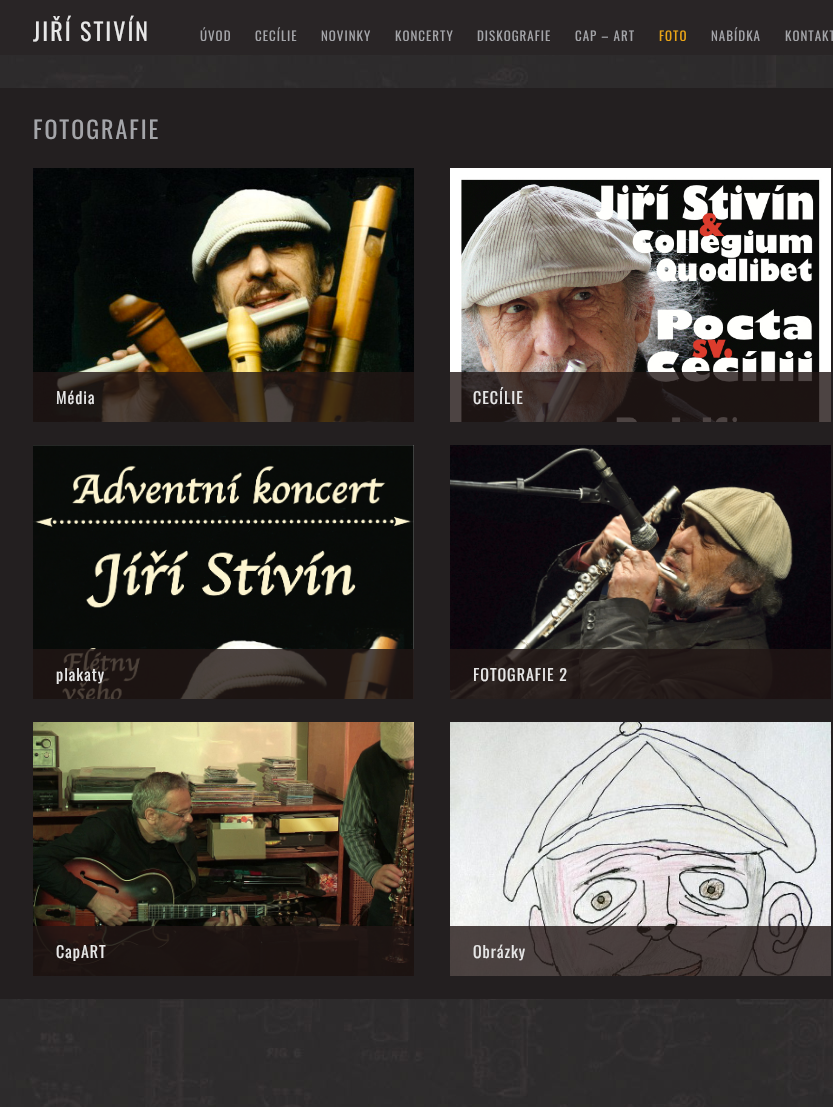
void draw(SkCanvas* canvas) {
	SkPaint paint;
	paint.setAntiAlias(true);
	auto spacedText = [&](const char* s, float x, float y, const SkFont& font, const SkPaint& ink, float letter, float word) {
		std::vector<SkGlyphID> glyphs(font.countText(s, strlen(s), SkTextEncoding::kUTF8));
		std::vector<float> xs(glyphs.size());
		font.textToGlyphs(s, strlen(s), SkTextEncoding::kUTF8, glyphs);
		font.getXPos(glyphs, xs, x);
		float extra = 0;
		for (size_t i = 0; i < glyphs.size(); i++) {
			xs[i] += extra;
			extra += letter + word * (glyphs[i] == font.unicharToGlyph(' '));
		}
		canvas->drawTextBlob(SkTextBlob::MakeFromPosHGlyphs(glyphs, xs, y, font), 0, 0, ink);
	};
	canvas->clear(0xffffffff);
	canvas->drawImageRect(SkImages::DeferredFromEncodedData(SkData::MakeFromFileName("img1.png")), SkRect::MakeXYWH(0, 55, 833, 1052), SkSamplingOptions());
	paint.setColor(0xff292526);
	canvas->drawRect(SkRect::MakeXYWH(0, 0, 833, 55), paint);
	SkFont f1(fontMgr->matchFamilyStyle("Oswald", SkFontStyle::Normal()), 24);
	f1.setSubpixel(true);
	paint.setColor(0xffe7e7e7);
	spacedText("JIŘÍ STIVÍN", 33, 41, f1, paint, 2, 0);
	SkFont f2(fontMgr->matchFamilyStyle("Oswald", SkFontStyle::Normal()), 13);
	f2.setSubpixel(true);
	paint.setColor(0xffa4a5a9);
	spacedText("ÚVOD", 200, 41, f2, paint, 1, 0);
	spacedText("CECÍLIE", 255, 41, f2, paint, 1, 0);
	spacedText("NOVINKY", 321, 41, f2, paint, 1, 0);
	spacedText("KONCERTY", 395, 41, f2, paint, 1, 0);
	spacedText("DISKOGRAFIE", 477, 41, f2, paint, 1, 0);
	spacedText("CAP – ART", 575, 41, f2, paint, 1, 0);
	paint.setColor(0xffeaa415);
	spacedText("FOTO", 659, 41, f2, paint, 1, 0);
	paint.setColor(0xffa4a5a9);
	spacedText("NABÍDKA", 711, 41, f2, paint, 1, 0);
	spacedText("KONTAKT", 785, 41, f2, paint, 1, 0);
	paint.setColor(0xff231f20);
	canvas->drawRect(SkRect::MakeXYWH(0, 88, 833, 911), paint);
	paint.setColor(0xffa4a5a9);
	spacedText("FOTOGRAFIE", 33, 139, f1, paint, 2, 0);
	canvas->drawImageRect(SkImages::DeferredFromEncodedData(SkData::MakeFromFileName("img2.png")), SkRect::MakeXYWH(33, 168, 381, 254), SkSamplingOptions());
	paint.setColor(0xcc201514);
	canvas->drawRect(SkRect::MakeXYWH(33, 372, 381, 50), paint);
	SkFont f3(fontMgr->matchFamilyStyle("Oswald", SkFontStyle::Normal()), 16);
	f3.setSubpixel(true);
	paint.setColor(0xffe7e7e7);
	spacedText("Média", 56, 404, f3, paint, 1, 0);
	canvas->drawImageRect(SkImages::DeferredFromEncodedData(SkData::MakeFromFileName("img3.png")), SkRect::MakeXYWH(450, 168, 381, 254), SkSamplingOptions());
	paint.setColor(0xcc201514);
	canvas->drawRect(SkRect::MakeXYWH(450, 372, 381, 50), paint);
	paint.setColor(0xffe7e7e7);
	spacedText("CECÍLIE", 473, 404, f3, paint, 1, 0);
	canvas->drawImageRect(SkImages::DeferredFromEncodedData(SkData::MakeFromFileName("img4.png")), SkRect::MakeXYWH(33, 445, 381, 254), SkSamplingOptions());
	paint.setColor(0xcc201514);
	canvas->drawRect(SkRect::MakeXYWH(33, 649, 381, 50), paint);
	paint.setColor(0xffe7e7e7);
	spacedText("plakaty", 56, 681, f3, paint, 1, 0);
	canvas->drawImageRect(SkImages::DeferredFromEncodedData(SkData::MakeFromFileName("img5.png")), SkRect::MakeXYWH(450, 445, 381, 254), SkSamplingOptions());
	paint.setColor(0xcc201514);
	canvas->drawRect(SkRect::MakeXYWH(450, 649, 381, 50), paint);
	paint.setColor(0xffe7e7e7);
	spacedText("FOTOGRAFIE 2", 473, 681, f3, paint, 1, 0);
	canvas->drawImageRect(SkImages::DeferredFromEncodedData(SkData::MakeFromFileName("img6.png")), SkRect::MakeXYWH(33, 722, 381, 254), SkSamplingOptions());
	paint.setColor(0xcc201514);
	canvas->drawRect(SkRect::MakeXYWH(33, 926, 381, 50), paint);
	paint.setColor(0xffe7e7e7);
	spacedText("CapART", 56, 958, f3, paint, 1, 0);
	canvas->drawImageRect(SkImages::DeferredFromEncodedData(SkData::MakeFromFileName("img7.png")), SkRect::MakeXYWH(450, 722, 381, 254), SkSamplingOptions());
	paint.setColor(0xcc201514);
	canvas->drawRect(SkRect::MakeXYWH(450, 926, 381, 50), paint);
	paint.setColor(0xffe7e7e7);
	spacedText("Obrázky", 473, 958, f3, paint, 1, 0);
}
